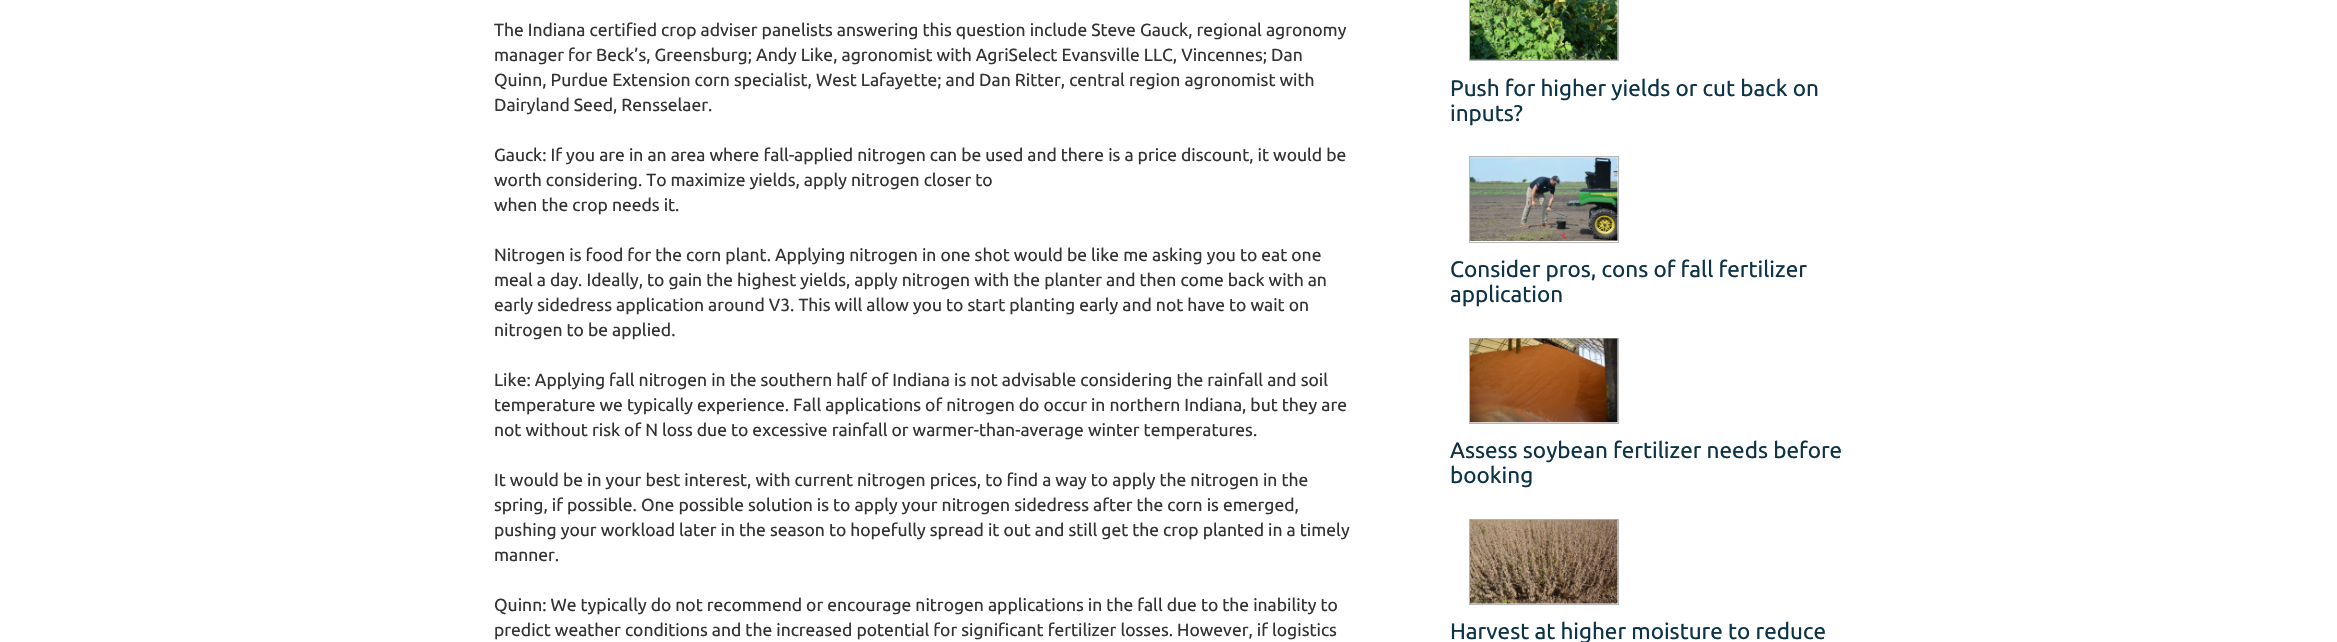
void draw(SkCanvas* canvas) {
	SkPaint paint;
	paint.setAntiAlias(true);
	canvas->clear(0xffffffff);
	SkFont f1(fontMgr->matchFamilyStyle("Ubuntu", SkFontStyle::Normal()), 17.5);
	f1.setSubpixel(true);
	paint.setColor(0xff333333);
	canvas->drawString("The Indiana certified crop adviser panelists answering this question include Steve Gauck, regional agronomy", 494, 36, f1, paint);
	canvas->drawString("manager for Beck’s, Greensburg; Andy Like, agronomist with AgriSelect Evansville LLC, Vincennes; Dan", 494, 61, f1, paint);
	canvas->drawString("Quinn, Purdue Extension corn specialist, West Lafayette; and Dan Ritter, central region agronomist with", 494, 86, f1, paint);
	canvas->drawString("Dairyland Seed, Rensselaer.", 494, 111, f1, paint);
	canvas->drawString("Gauck: If you are in an area where fall-applied nitrogen can be used and there is a price discount, it would be", 494, 161, f1, paint);
	canvas->drawString("worth considering. To maximize yields, apply nitrogen closer to", 494, 186, f1, paint);
	canvas->drawString("when the crop needs it.", 494, 211, f1, paint);
	canvas->drawString("Nitrogen is food for the corn plant. Applying nitrogen in one shot would be like me asking you to eat one", 494, 261, f1, paint);
	canvas->drawString("meal a day. Ideally, to gain the highest yields, apply nitrogen with the planter and then come back with an", 494, 286, f1, paint);
	canvas->drawString("early sidedress application around V3. This will allow you to start planting early and not have to wait on", 494, 311, f1, paint);
	canvas->drawString("nitrogen to be applied.", 494, 336, f1, paint);
	canvas->drawString("Like: Applying fall nitrogen in the southern half of Indiana is not advisable considering the rainfall and soil", 494, 386, f1, paint);
	canvas->drawString("temperature we typically experience. Fall applications of nitrogen do occur in northern Indiana, but they are", 494, 411, f1, paint);
	canvas->drawString("not without risk of N loss due to excessive rainfall or warmer-than-average winter temperatures.", 494, 436, f1, paint);
	canvas->drawString("It would be in your best interest, with current nitrogen prices, to find a way to apply the nitrogen in the", 494, 486, f1, paint);
	canvas->drawString("spring, if possible. One possible solution is to apply your nitrogen sidedress after the corn is emerged,", 494, 511, f1, paint);
	canvas->drawString("pushing your workload later in the season to hopefully spread it out and still get the crop planted in a timely", 494, 536, f1, paint);
	canvas->drawString("manner.", 494, 561, f1, paint);
	canvas->drawString("Quinn: We typically do not recommend or encourage nitrogen applications in the fall due to the inability to", 494, 611, f1, paint);
	canvas->drawString("predict weather conditions and the increased potential for significant fertilizer losses. However, if logistics", 494, 636, f1, paint);
	paint.setStroke(true);
	paint.setStrokeWidth(1);
	paint.setColor(0xffb6b6b6);
	canvas->drawRect(SkRect::MakeXYWH(1469.5, -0.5, 149, 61), paint);
	canvas->drawImageRect(SkImages::DeferredFromEncodedData(SkData::MakeFromFileName("img1.png")), SkRect::MakeXYWH(1470, 0, 148, 60), SkSamplingOptions());
	SkFont f2(fontMgr->matchFamilyStyle("Ubuntu", SkFontStyle::Normal()), 22.5);
	f2.setSubpixel(true);
	paint.setStroke(false);
	paint.setColor(0xff0d3349);
	canvas->drawString("Push for higher yields or cut back on", 1450, 96, f2, paint);
	canvas->drawString("inputs?", 1450, 121, f2, paint);
	paint.setStroke(true);
	paint.setColor(0xffb6b6b6);
	canvas->drawRect(SkRect::MakeXYWH(1469.5, 156.5, 149, 86), paint);
	canvas->drawImageRect(SkImages::DeferredFromEncodedData(SkData::MakeFromFileName("img2.png")), SkRect::MakeXYWH(1470, 157, 148, 84), SkSamplingOptions());
	paint.setStroke(false);
	paint.setColor(0xff0d3349);
	canvas->drawString("Consider pros, cons of fall fertilizer", 1450, 277, f2, paint);
	canvas->drawString("application", 1450, 302, f2, paint);
	paint.setStroke(true);
	paint.setColor(0xffb6b6b6);
	canvas->drawRect(SkRect::MakeXYWH(1469.5, 338.5, 149, 85), paint);
	canvas->drawImageRect(SkImages::DeferredFromEncodedData(SkData::MakeFromFileName("img3.png")), SkRect::MakeXYWH(1470, 338, 148, 85), SkSamplingOptions());
	paint.setStroke(false);
	paint.setColor(0xff0d3349);
	canvas->drawString("Assess soybean fertilizer needs before", 1450, 458, f2, paint);
	canvas->drawString("booking", 1450, 483, f2, paint);
	paint.setStroke(true);
	paint.setColor(0xffb6b6b6);
	canvas->drawRect(SkRect::MakeXYWH(1469.5, 519.5, 149, 85), paint);
	canvas->drawImageRect(SkImages::DeferredFromEncodedData(SkData::MakeFromFileName("img4.png")), SkRect::MakeXYWH(1470, 519, 148, 85), SkSamplingOptions());
	paint.setStroke(false);
	paint.setColor(0xff0d3349);
	canvas->drawString("Harvest at higher moisture to reduce", 1450, 639, f2, paint);
}
